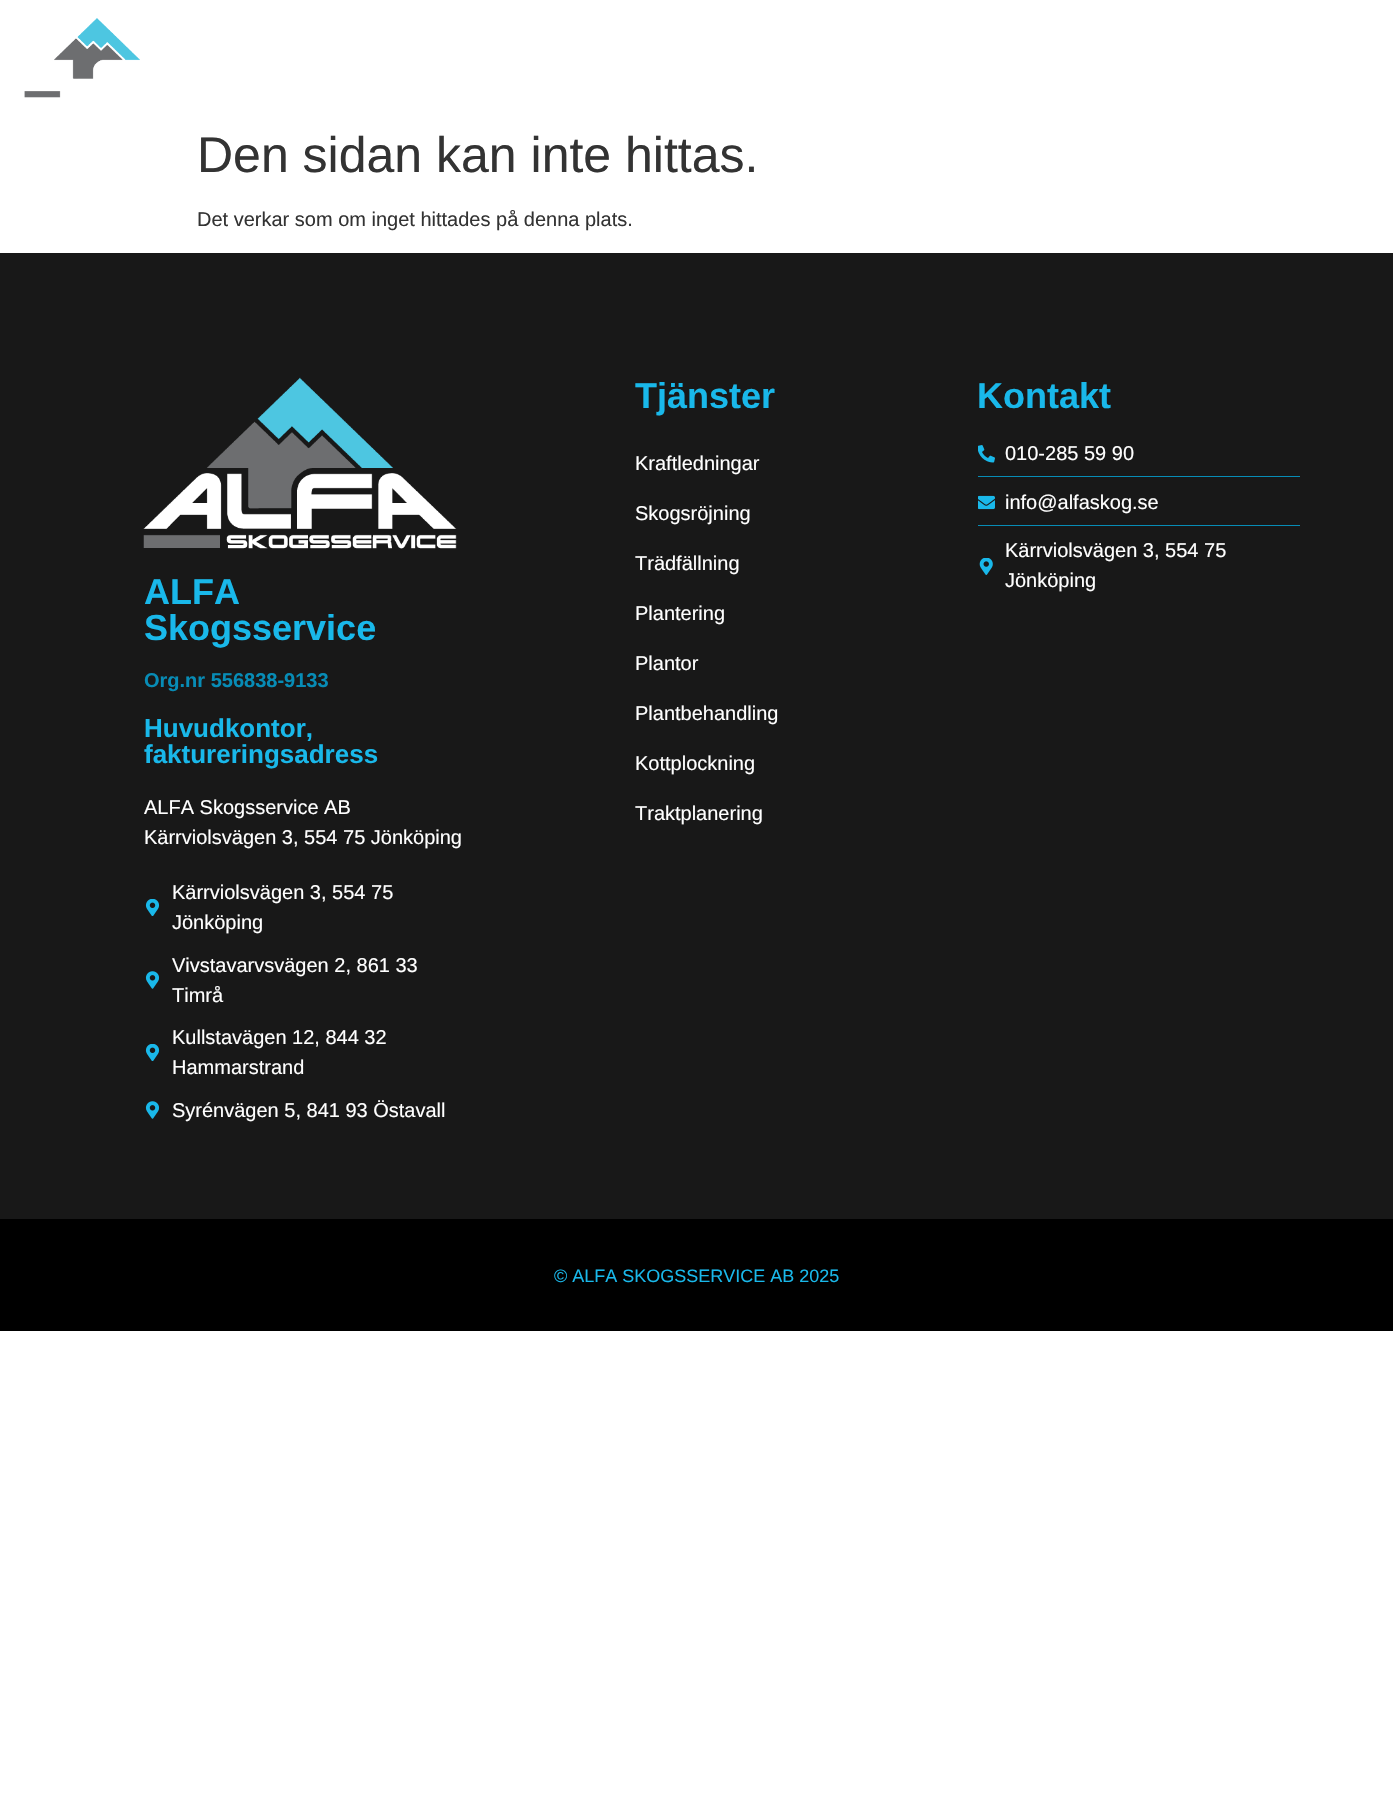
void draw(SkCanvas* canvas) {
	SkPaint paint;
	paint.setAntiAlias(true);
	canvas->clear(0xffffffff);
	canvas->drawImageRect(SkImages::DeferredFromEncodedData(SkData::MakeFromFileName("img1.png")), SkRect::MakeXYWH(24, 18, 116, 80), SkSamplingOptions());
	SkFont f1(fontMgr->matchFamilyStyle("Liberation Sans", SkFontStyle::Normal()), 50);
	f1.setSubpixel(true);
	paint.setColor(0xff333333);
	canvas->drawString("Den sidan kan inte hittas.", 197, 172, f1, paint);
	SkFont f2(fontMgr->matchFamilyStyle("Liberation Sans", SkFontStyle::Normal()), 20);
	f2.setSubpixel(true);
	canvas->drawString("Det verkar som om inget hittades på denna plats.", 197, 226, f2, paint);
	paint.setColor(0xff181818);
	canvas->drawRect(SkRect::MakeXYWH(0, 253, 1393, 966), paint);
	SkFont f3(fontMgr->matchFamilyStyle("Liberation Sans", SkFontStyle::Bold()), 36);
	f3.setSubpixel(true);
	paint.setColor(0xff19b8ea);
	canvas->drawString("Tjänster", 635, 408, f3, paint);
	paint.setColor(0xffffffff);
	canvas->drawString("Kraftledningar", 635, 470, f2, paint);
	canvas->drawString("Skogsröjning", 635, 520, f2, paint);
	canvas->drawString("Trädfällning", 635, 570, f2, paint);
	canvas->drawString("Plantering", 635, 620, f2, paint);
	canvas->drawString("Plantor", 635, 670, f2, paint);
	canvas->drawString("Plantbehandling", 635, 720, f2, paint);
	canvas->drawString("Kottplockning", 635, 770, f2, paint);
	canvas->drawString("Traktplanering", 635, 820, f2, paint);
	paint.setColor(0xff19b8ea);
	canvas->drawString("Kontakt", 977, 408, f3, paint);
	canvas->drawImageRect(SkImages::DeferredFromEncodedData(SkData::MakeFromFileName("img2.png")), SkRect::MakeXYWH(978, 445, 17, 18), SkSamplingOptions());
	paint.setColor(0xffffffff);
	canvas->drawString("010-285 59 90", 1005, 460, f2, paint);
	paint.setColor(0xff078cb6);
	canvas->drawRect(SkRect::MakeXYWH(978, 476, 322, 1), paint);
	canvas->drawImageRect(SkImages::DeferredFromEncodedData(SkData::MakeFromFileName("img3.png")), SkRect::MakeXYWH(978, 495, 17, 15), SkSamplingOptions());
	paint.setColor(0xffffffff);
	canvas->drawString("info@alfaskog.se", 1005, 509, f2, paint);
	paint.setColor(0xff078cb6);
	canvas->drawRect(SkRect::MakeXYWH(978, 525, 322, 1), paint);
	canvas->drawImageRect(SkImages::DeferredFromEncodedData(SkData::MakeFromFileName("img4.png")), SkRect::MakeXYWH(979, 558, 14, 17), SkSamplingOptions());
	paint.setColor(0xffffffff);
	canvas->drawString("Kärrviolsvägen 3, 554 75", 1005, 557, f2, paint);
	canvas->drawString("Jönköping", 1005, 587, f2, paint);
	canvas->drawImageRect(SkImages::DeferredFromEncodedData(SkData::MakeFromFileName("img5.png")), SkRect::MakeXYWH(143, 377, 314, 172), SkSamplingOptions());
	paint.setColor(0xff19b8ea);
	canvas->drawString("ALFA", 144, 604, f3, paint);
	canvas->drawString("Skogsservice", 144, 640, f3, paint);
	SkFont f4(fontMgr->matchFamilyStyle("Liberation Sans", SkFontStyle::Bold()), 20);
	f4.setSubpixel(true);
	paint.setColor(0xff078cb6);
	canvas->drawString("Org.nr 556838-9133", 144, 687, f4, paint);
	SkFont f5(fontMgr->matchFamilyStyle("Liberation Sans", SkFontStyle::Bold()), 26);
	f5.setSubpixel(true);
	paint.setColor(0xff19b8ea);
	canvas->drawString("Huvudkontor,", 144, 737, f5, paint);
	canvas->drawString("faktureringsadress", 144, 763, f5, paint);
	paint.setColor(0xffffffff);
	canvas->drawString("ALFA Skogsservice AB", 144, 814, f2, paint);
	canvas->drawString("Kärrviolsvägen 3, 554 75 Jönköping", 144, 844, f2, paint);
	canvas->drawImageRect(SkImages::DeferredFromEncodedData(SkData::MakeFromFileName("img6.png")), SkRect::MakeXYWH(145, 899, 15, 17), SkSamplingOptions());
	canvas->drawString("Kärrviolsvägen 3, 554 75", 172, 899, f2, paint);
	canvas->drawString("Jönköping", 172, 929, f2, paint);
	canvas->drawImageRect(SkImages::DeferredFromEncodedData(SkData::MakeFromFileName("img7.png")), SkRect::MakeXYWH(145, 971, 15, 18), SkSamplingOptions());
	canvas->drawString("Vivstavarvsvägen 2, 861 33", 172, 972, f2, paint);
	canvas->drawString("Timrå", 172, 1002, f2, paint);
	canvas->drawImageRect(SkImages::DeferredFromEncodedData(SkData::MakeFromFileName("img6.png")), SkRect::MakeXYWH(145, 1044, 15, 17), SkSamplingOptions());
	canvas->drawString("Kullstavägen 12, 844 32", 172, 1044, f2, paint);
	canvas->drawString("Hammarstrand", 172, 1074, f2, paint);
	canvas->drawImageRect(SkImages::DeferredFromEncodedData(SkData::MakeFromFileName("img7.png")), SkRect::MakeXYWH(145, 1101, 15, 18), SkSamplingOptions());
	canvas->drawString("Syrénvägen 5, 841 93 Östavall", 172, 1117, f2, paint);
	paint.setColor(0xff000000);
	canvas->drawRect(SkRect::MakeXYWH(0, 1219, 1393, 112), paint);
	SkFont f6(fontMgr->matchFamilyStyle("Liberation Sans", SkFontStyle::Normal()), 18);
	f6.setSubpixel(true);
	paint.setColor(0xff19b8ea);
	canvas->drawString("© ALFA SKOGSSERVICE AB 2025", 554, 1282, f6, paint);
}
